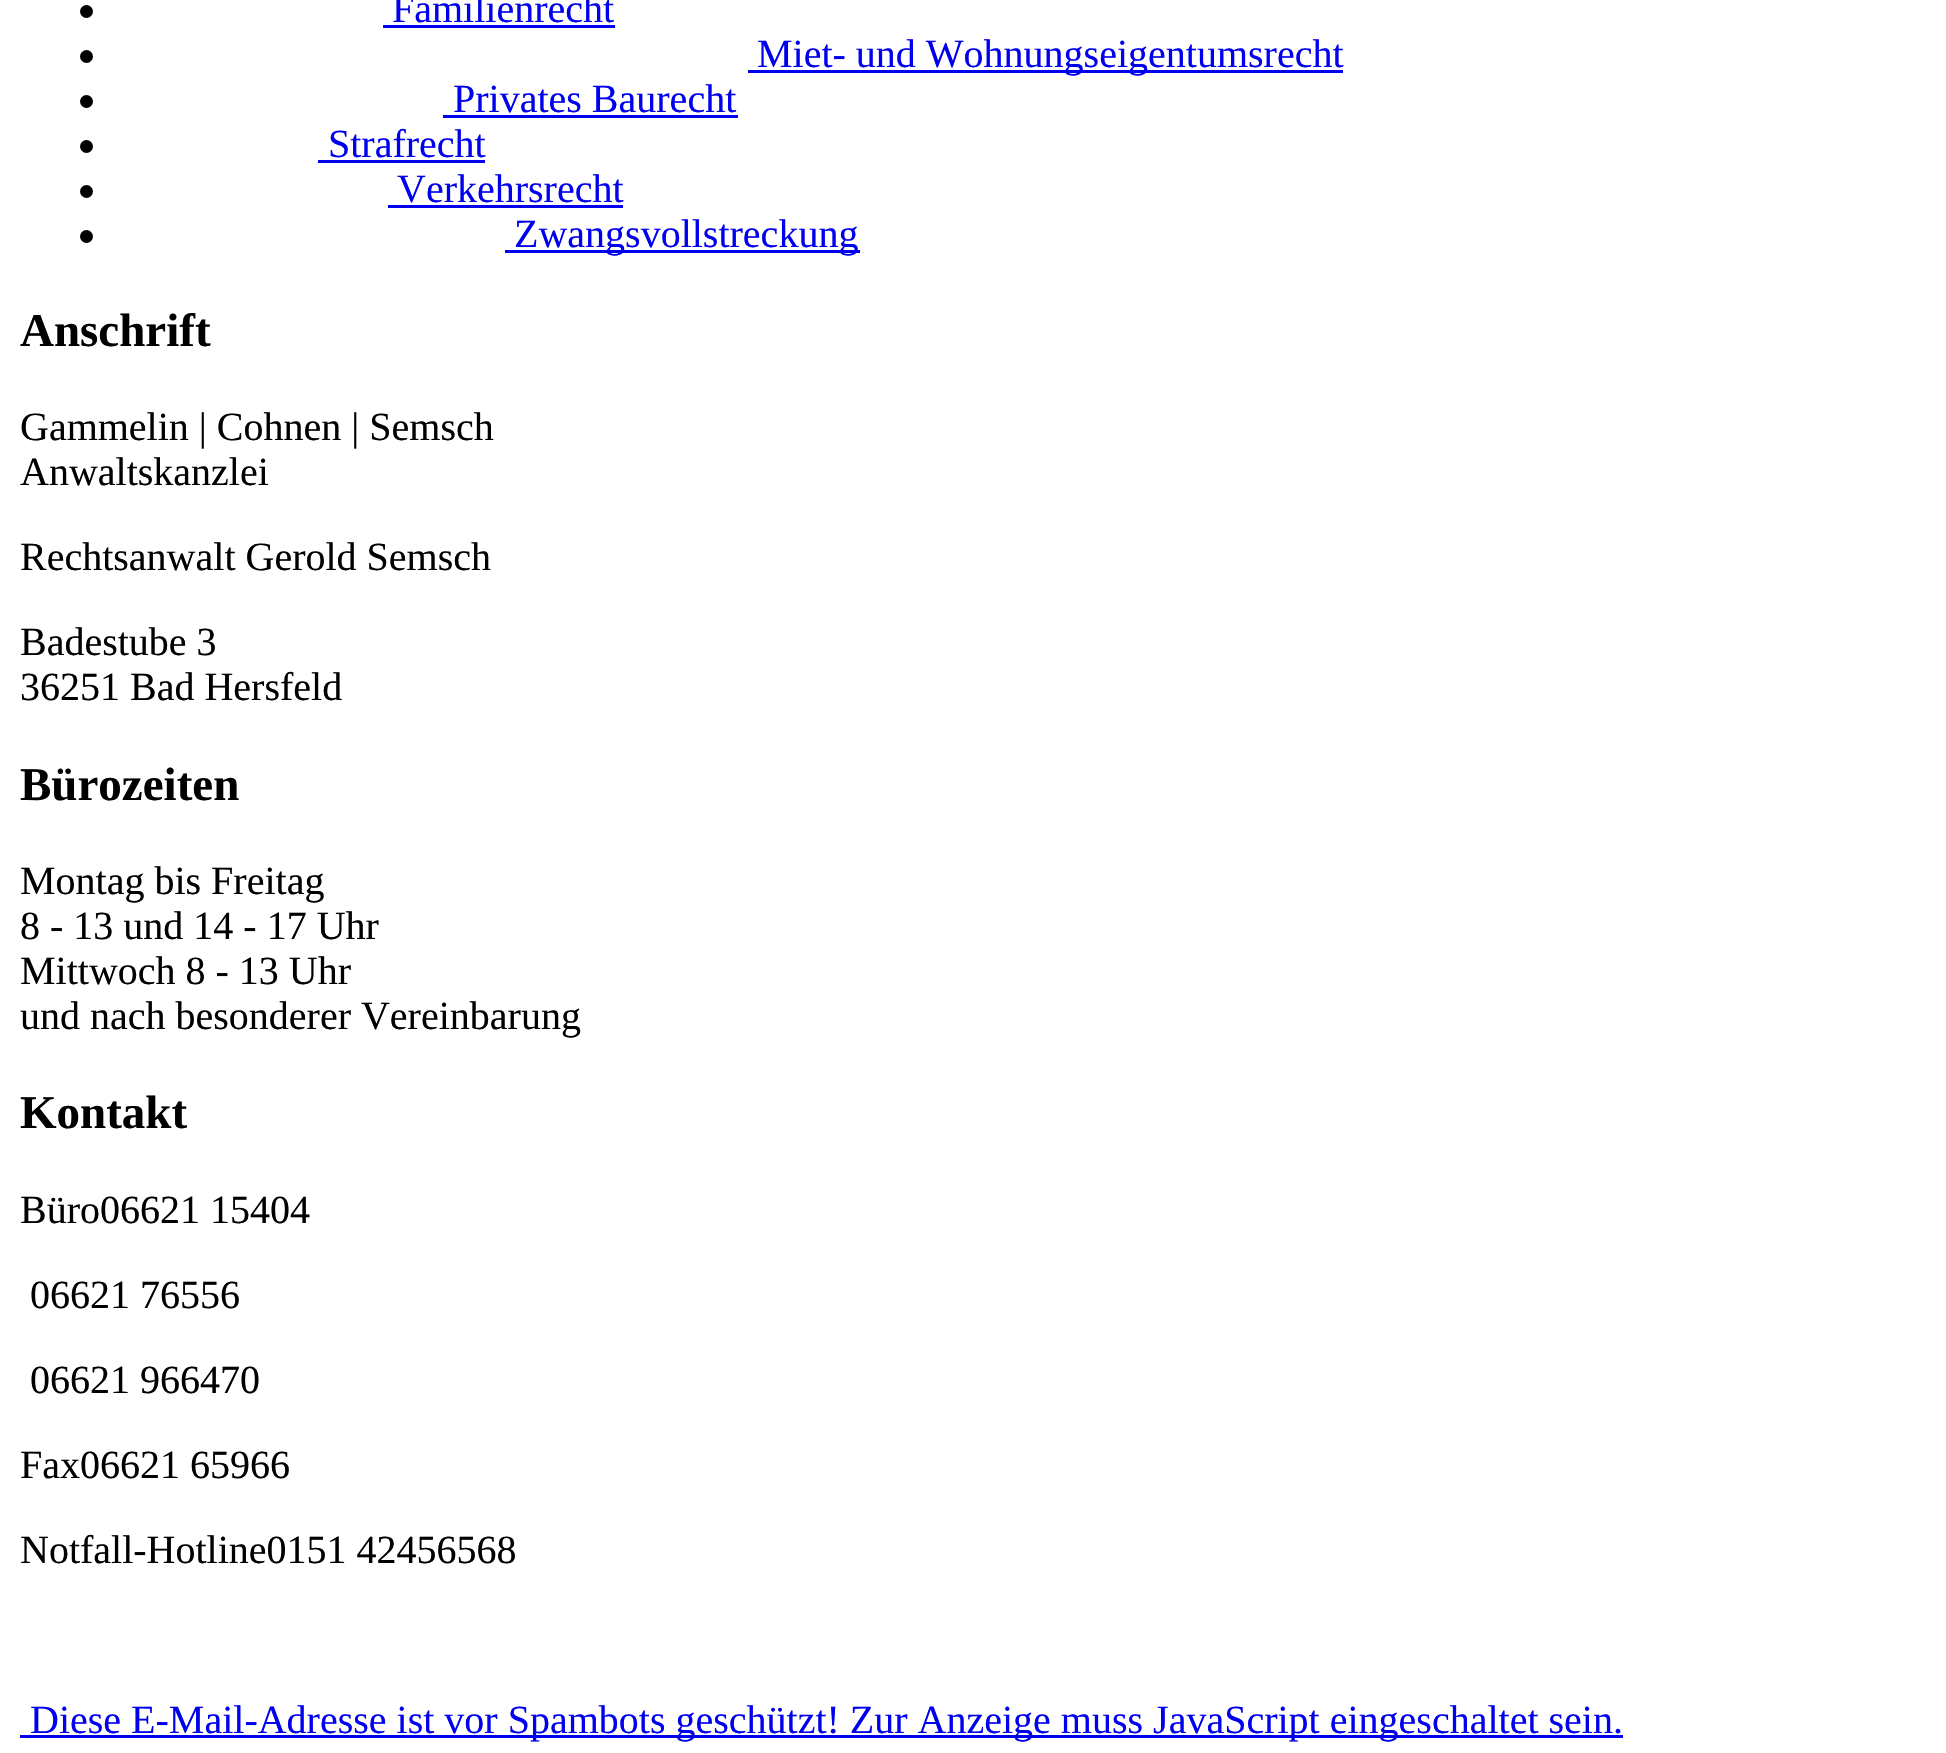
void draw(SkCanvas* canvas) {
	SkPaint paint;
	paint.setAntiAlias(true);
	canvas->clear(0xffffffff);
	paint.setColor(0xff000000);
	canvas->drawCircle(86.5, 11.5, 6.5, paint);
	SkFont f1(fontMgr->matchFamilyStyle("Liberation Serif", SkFontStyle::Normal()), 40);
	f1.setSubpixel(true);
	paint.setColor(0xff0000ee);
	canvas->drawString("Familienrecht", 392, 22, f1, paint);
	canvas->drawRect(SkRect::MakeXYWH(383, 25, 232, 3), paint);
	paint.setColor(0xff000000);
	canvas->drawCircle(86.5, 56.5, 6.5, paint);
	paint.setColor(0xff0000ee);
	canvas->drawRect(SkRect::MakeXYWH(748, 70, 595, 3), paint);
	canvas->drawString("Miet- und Wohnungseigentumsrecht", 757, 67, f1, paint);
	paint.setColor(0xff000000);
	canvas->drawCircle(86.5, 101.5, 6.5, paint);
	paint.setColor(0xff0000ee);
	canvas->drawString("Privates Baurecht", 453, 112, f1, paint);
	canvas->drawRect(SkRect::MakeXYWH(443, 115, 295, 3), paint);
	paint.setColor(0xff000000);
	canvas->drawCircle(86.5, 146.5, 6.5, paint);
	paint.setColor(0xff0000ee);
	canvas->drawString("Strafrecht", 328, 157, f1, paint);
	canvas->drawRect(SkRect::MakeXYWH(318, 160, 167, 3), paint);
	paint.setColor(0xff000000);
	canvas->drawCircle(86.5, 191.5, 6.5, paint);
	paint.setColor(0xff0000ee);
	canvas->drawString("Verkehrsrecht", 397, 202, f1, paint);
	canvas->drawRect(SkRect::MakeXYWH(388, 205, 235, 3), paint);
	paint.setColor(0xff000000);
	canvas->drawCircle(86.5, 236.5, 6.5, paint);
	paint.setColor(0xff0000ee);
	canvas->drawRect(SkRect::MakeXYWH(505, 250, 355, 3), paint);
	canvas->drawString("Zwangsvollstreckung", 514, 247, f1, paint);
	SkFont f2(fontMgr->matchFamilyStyle("Liberation Serif", SkFontStyle::Bold()), 47);
	f2.setSubpixel(true);
	paint.setColor(0xff000000);
	canvas->drawString("Anschrift", 20, 346, f2, paint);
	canvas->drawString("Gammelin | Cohnen | Semsch", 20, 440, f1, paint);
	canvas->drawString("Anwaltskanzlei", 20, 485, f1, paint);
	canvas->drawString("Rechtsanwalt Gerold Semsch", 20, 570, f1, paint);
	canvas->drawString("Badestube 3", 20, 655, f1, paint);
	canvas->drawString("36251 Bad Hersfeld", 20, 700, f1, paint);
	canvas->drawString("Bürozeiten", 20, 800, f2, paint);
	canvas->drawString("Montag bis Freitag", 20, 894, f1, paint);
	canvas->drawString("8 - 13 und 14 - 17 Uhr", 20, 939, f1, paint);
	canvas->drawString("Mittwoch 8 - 13 Uhr", 20, 984, f1, paint);
	canvas->drawString("und nach besonderer Vereinbarung", 20, 1029, f1, paint);
	canvas->drawString("Kontakt", 20, 1128, f2, paint);
	canvas->drawString("Büro06621 15404", 20, 1223, f1, paint);
	canvas->drawString("06621 76556", 30, 1308, f1, paint);
	canvas->drawString("06621 966470", 30, 1393, f1, paint);
	canvas->drawString("Fax06621 65966", 20, 1478, f1, paint);
	canvas->drawString("Notfall-Hotline0151 42456568", 20, 1563, f1, paint);
	paint.setColor(0xff0000ee);
	canvas->drawRect(SkRect::MakeXYWH(20, 1735, 1603, 3), paint);
	canvas->drawString("Diese E-Mail-Adresse ist vor Spambots geschützt! Zur Anzeige muss JavaScript eingeschaltet sein.", 30, 1733, f1, paint);
}
